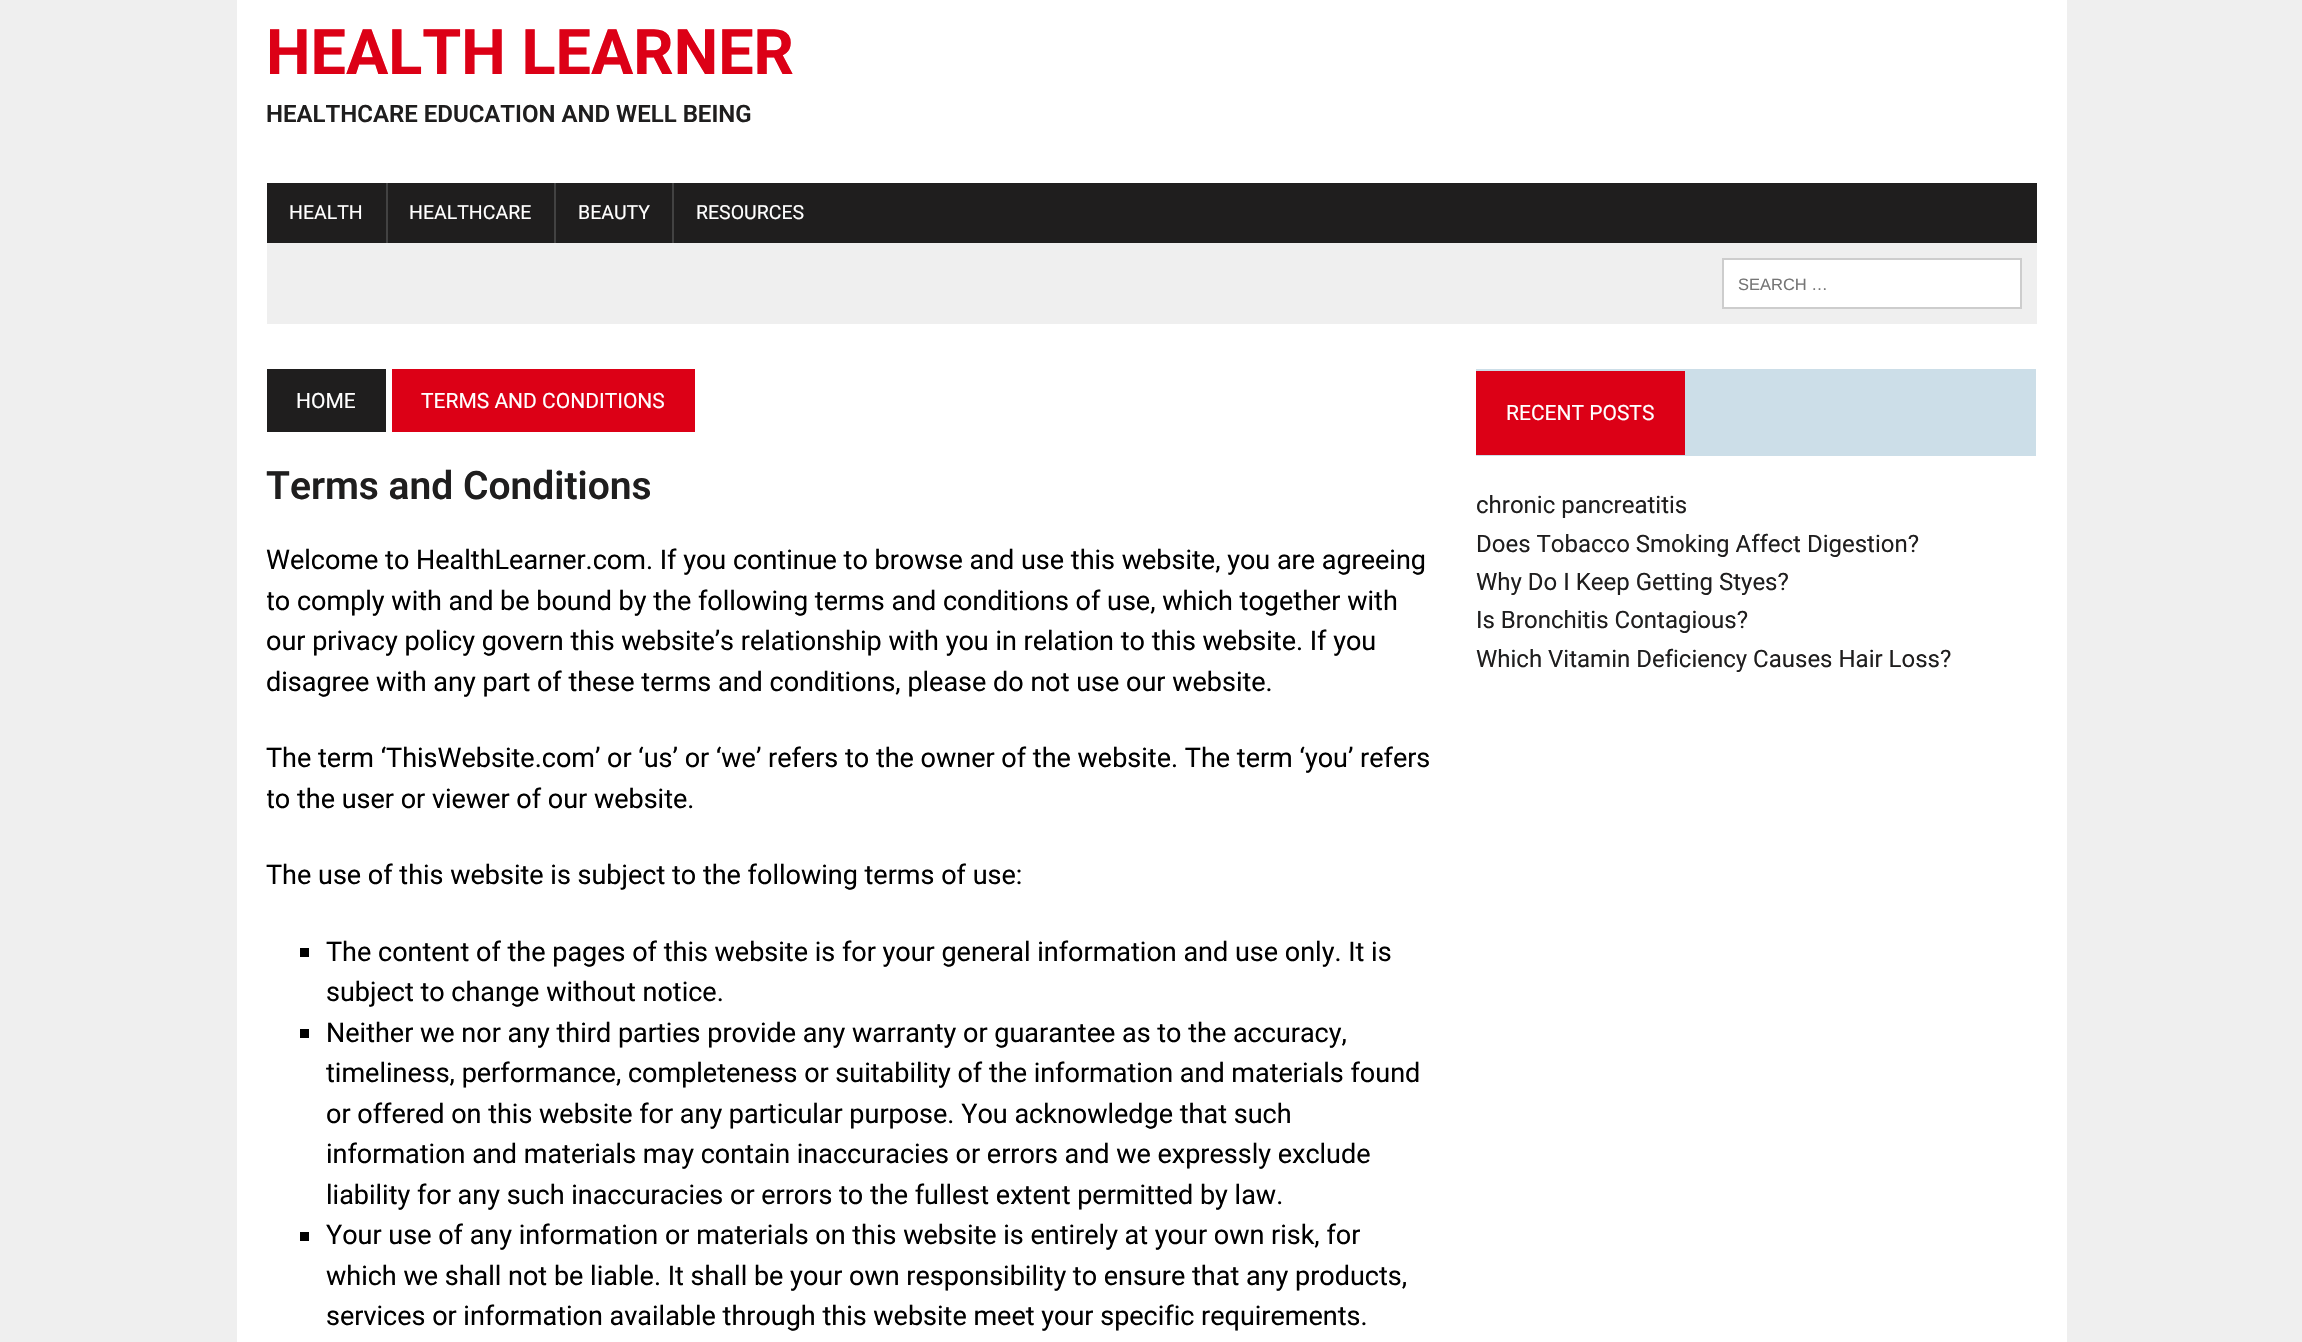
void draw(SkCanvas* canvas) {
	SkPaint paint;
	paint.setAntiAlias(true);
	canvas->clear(0xffefefef);
	paint.setColor(0xffffffff);
	canvas->drawRect(SkRect::MakeXYWH(237, 0, 1830, 1342), paint);
	SkFont f1(fontMgr->matchFamilyStyle("Roboto", SkFontStyle::Bold()), 63);
	f1.setSubpixel(true);
	paint.setColor(0xffdc0016);
	canvas->drawString("HEALTH LEARNER", 266, 74, f1, paint);
	SkFont f2(fontMgr->matchFamilyStyle("Roboto", SkFontStyle(600, SkFontStyle::kNormal_Width, SkFontStyle::kUpright_Slant)), 24);
	f2.setSubpixel(true);
	paint.setColor(0xff1f1e1e);
	canvas->drawString("HEALTHCARE EDUCATION AND WELL BEING", 266, 122, f2, paint);
	canvas->drawRect(SkRect::MakeXYWH(267, 183, 1770, 60), paint);
	SkFont f3(fontMgr->matchFamilyStyle("Roboto", SkFontStyle::Normal()), 19.5);
	f3.setSubpixel(true);
	paint.setColor(0xffffffff);
	canvas->drawString("HEALTH", 289, 219, f3, paint);
	paint.setColor(0xff424242);
	canvas->drawRect(SkRect::MakeXYWH(386, 183, 2, 60), paint);
	paint.setColor(0xffffffff);
	canvas->drawString("HEALTHCARE", 409, 219, f3, paint);
	paint.setColor(0xff424242);
	canvas->drawRect(SkRect::MakeXYWH(554, 183, 2, 60), paint);
	paint.setColor(0xffffffff);
	canvas->drawString("BEAUTY", 578, 219, f3, paint);
	paint.setColor(0xff424242);
	canvas->drawRect(SkRect::MakeXYWH(672, 183, 2, 60), paint);
	paint.setColor(0xffffffff);
	canvas->drawString("RESOURCES", 696, 219, f3, paint);
	paint.setColor(0xffefefef);
	canvas->drawRect(SkRect::MakeXYWH(267, 243, 1770, 81), paint);
	paint.setColor(0xffffffff);
	canvas->drawRect(SkRect::MakeXYWH(1723, 259, 298, 49), paint);
	paint.setStroke(true);
	paint.setStrokeWidth(2);
	paint.setColor(0xffcdcdcd);
	canvas->drawRect(SkRect::MakeXYWH(1723, 259, 298, 49), paint);
	SkFont f4(fontMgr->matchFamilyStyle("Liberation Sans", SkFontStyle::Normal()), 16.5);
	f4.setSubpixel(true);
	paint.setStroke(false);
	paint.setColor(0xff757575);
	canvas->drawString("SEARCH …", 1738, 290, f4, paint);
	paint.setColor(0xff1f1e1e);
	canvas->drawRect(SkRect::MakeXYWH(267, 369, 119, 63), paint);
	SkFont f5(fontMgr->matchFamilyStyle("Roboto", SkFontStyle::Normal()), 21);
	f5.setSubpixel(true);
	paint.setColor(0xffffffff);
	canvas->drawString("HOME", 296, 408, f5, paint);
	paint.setColor(0xffdc0016);
	canvas->drawRect(SkRect::MakeXYWH(392, 369, 303, 63), paint);
	paint.setColor(0xffffffff);
	canvas->drawString("TERMS AND CONDITIONS", 421, 408, f5, paint);
	SkFont f6(fontMgr->matchFamilyStyle("Roboto", SkFontStyle(600, SkFontStyle::kNormal_Width, SkFontStyle::kUpright_Slant)), 39);
	f6.setSubpixel(true);
	paint.setColor(0xff1f1e1e);
	canvas->drawString("Terms and Conditions", 266, 499, f6, paint);
	SkFont f7(fontMgr->matchFamilyStyle("Roboto", SkFontStyle::Normal()), 27);
	f7.setSubpixel(true);
	paint.setColor(0xff000000);
	canvas->drawString("Welcome to HealthLearner.com. If you continue to browse and use this website, you are agreeing", 266, 569, f7, paint);
	canvas->save();
	canvas->clipRect(SkRect::MakeXYWH(267, 369, 1164, 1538));
	canvas->drawString("to comply with and be bound by the following terms and conditions of use, which together with", 266, 610, f7, paint);
	canvas->restore();
	canvas->drawString("our privacy policy govern this website’s relationship with you in relation to this website. If you", 266, 650, f7, paint);
	canvas->drawString("disagree with any part of these terms and conditions, please do not use our website.", 266, 691, f7, paint);
	canvas->drawString("The term ‘ThisWebsite.com’ or ‘us’ or ‘we’ refers to the owner of the website. The term ‘you’ refers", 266, 767, f7, paint);
	canvas->save();
	canvas->clipRect(SkRect::MakeXYWH(267, 369, 1164, 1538));
	canvas->drawString("to the user or viewer of our website.", 266, 808, f7, paint);
	canvas->restore();
	canvas->drawString("The use of this website is subject to the following terms of use:", 266, 884, f7, paint);
	canvas->drawRect(SkRect::MakeXYWH(300, 948, 9, 9), paint);
	canvas->drawString("The content of the pages of this website is for your general information and use only. It is", 326, 961, f7, paint);
	canvas->drawString("subject to change without notice.", 326, 1001, f7, paint);
	canvas->drawRect(SkRect::MakeXYWH(300, 1029, 9, 9), paint);
	canvas->drawString("Neither we nor any third parties provide any warranty or guarantee as to the accuracy,", 326, 1042, f7, paint);
	canvas->drawString("timeliness, performance, completeness or suitability of the information and materials found", 326, 1082, f7, paint);
	canvas->drawString("or offered on this website for any particular purpose. You acknowledge that such", 326, 1123, f7, paint);
	canvas->drawString("information and materials may contain inaccuracies or errors and we expressly exclude", 326, 1163, f7, paint);
	canvas->drawString("liability for any such inaccuracies or errors to the fullest extent permitted by law.", 326, 1204, f7, paint);
	canvas->drawRect(SkRect::MakeXYWH(300, 1232, 9, 9), paint);
	canvas->drawString("Your use of any information or materials on this website is entirely at your own risk, for", 326, 1244, f7, paint);
	canvas->drawString("which we shall not be liable. It shall be your own responsibility to ensure that any products,", 326, 1285, f7, paint);
	canvas->drawString("services or information available through this website meet your specific requirements.", 326, 1325, f7, paint);
	paint.setColor(0xffccdee8);
	canvas->drawRect(SkRect::MakeXYWH(1476, 369, 560, 87), paint);
	paint.setColor(0xffdc0016);
	canvas->drawRect(SkRect::MakeXYWH(1476, 371, 209, 84), paint);
	paint.setColor(0xffffffff);
	canvas->drawString("RECENT POSTS", 1506, 420, f5, paint);
	SkFont f8(fontMgr->matchFamilyStyle("Roboto", SkFontStyle::Normal()), 24);
	f8.setSubpixel(true);
	paint.setColor(0xff1f1e1e);
	canvas->drawString("chronic pancreatitis", 1476, 513, f8, paint);
	canvas->drawString("Does Tobacco Smoking Affect Digestion?", 1476, 552, f8, paint);
	canvas->drawString("Why Do I Keep Getting Styes?", 1476, 590, f8, paint);
	canvas->drawString("Is Bronchitis Contagious?", 1476, 628, f8, paint);
	canvas->drawString("Which Vitamin Deficiency Causes Hair Loss?", 1476, 667, f8, paint);
}
